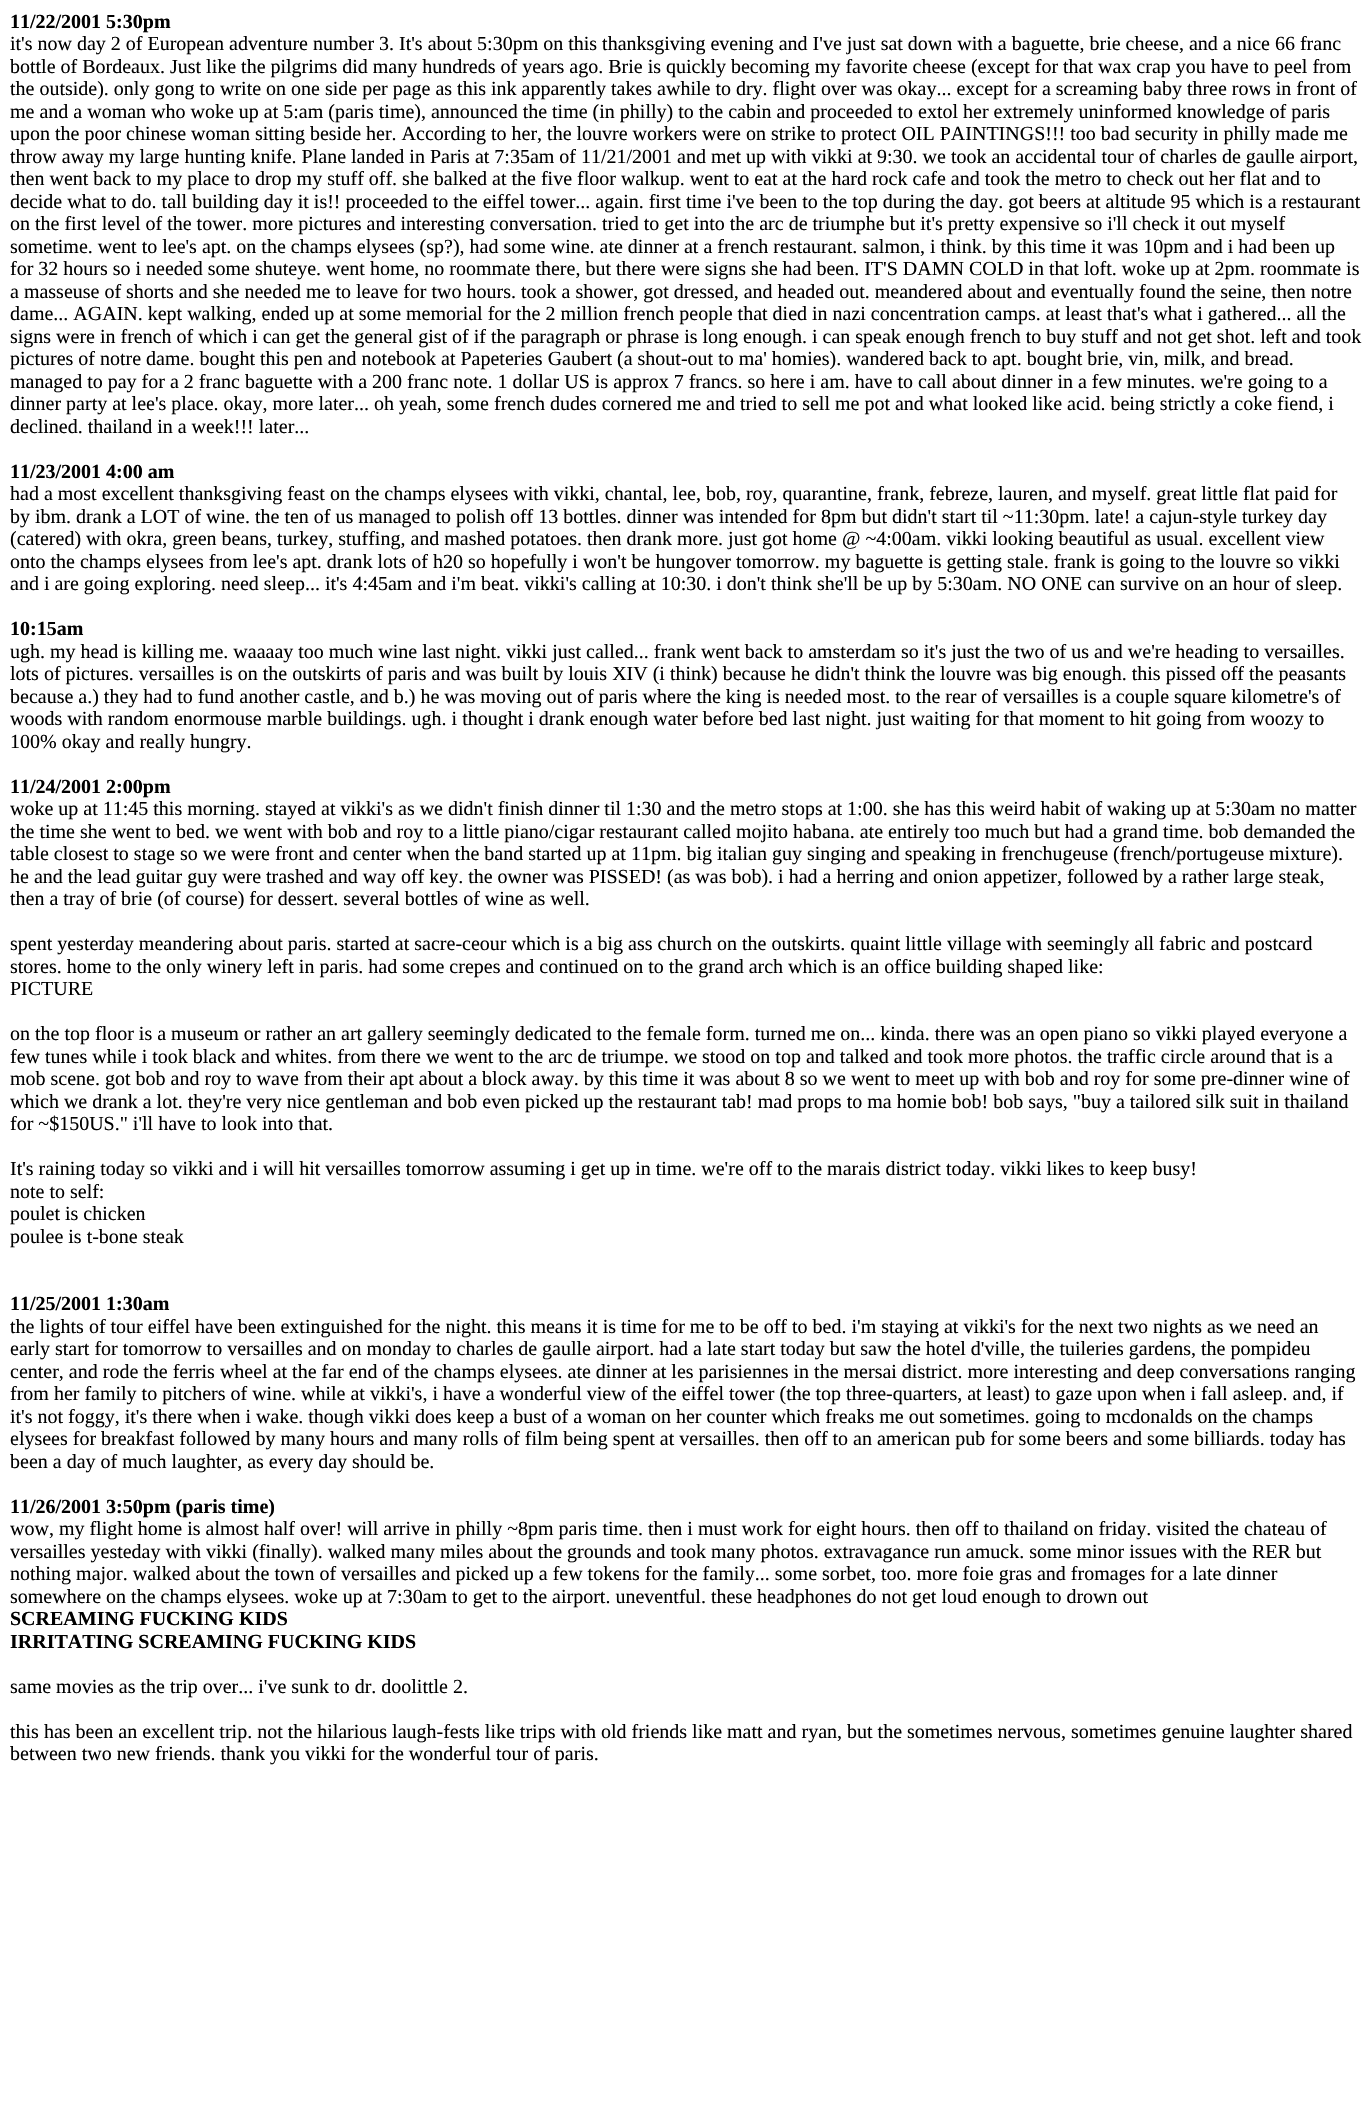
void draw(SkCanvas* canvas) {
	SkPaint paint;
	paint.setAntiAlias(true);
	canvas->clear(0xffffffff);
	SkFont f1(fontMgr->matchFamilyStyle("Liberation Serif", SkFontStyle::Bold()), 20);
	f1.setSubpixel(true);
	paint.setColor(0xff000000);
	canvas->drawString("11/22/2001 5:30pm", 10, 28, f1, paint);
	SkFont f2(fontMgr->matchFamilyStyle("Liberation Serif", SkFontStyle::Normal()), 20);
	f2.setSubpixel(true);
	canvas->drawString("it's now day 2 of European adventure number 3. It's about 5:30pm on this thanksgiving evening and I've just sat down with a baguette, brie cheese, and a nice 66 franc", 10, 50, f2, paint);
	canvas->drawString("bottle of Bordeaux. Just like the pilgrims did many hundreds of years ago. Brie is quickly becoming my favorite cheese (except for that wax crap you have to peel from", 10, 73, f2, paint);
	canvas->drawString("the outside). only gong to write on one side per page as this ink apparently takes awhile to dry. flight over was okay... except for a screaming baby three rows in front of", 10, 95, f2, paint);
	canvas->drawString("me and a woman who woke up at 5:am (paris time), announced the time (in philly) to the cabin and proceeded to extol her extremely uninformed knowledge of paris", 10, 118, f2, paint);
	canvas->drawString("upon the poor chinese woman sitting beside her. According to her, the louvre workers were on strike to protect OIL PAINTINGS!!! too bad security in philly made me", 10, 140, f2, paint);
	canvas->drawString("throw away my large hunting knife. Plane landed in Paris at 7:35am of 11/21/2001 and met up with vikki at 9:30. we took an accidental tour of charles de gaulle airport,", 10, 163, f2, paint);
	canvas->drawString("then went back to my place to drop my stuff off. she balked at the five floor walkup. went to eat at the hard rock cafe and took the metro to check out her flat and to", 10, 185, f2, paint);
	canvas->drawString("decide what to do. tall building day it is!! proceeded to the eiffel tower... again. first time i've been to the top during the day. got beers at altitude 95 which is a restaurant", 10, 208, f2, paint);
	canvas->drawString("on the first level of the tower. more pictures and interesting conversation. tried to get into the arc de triumphe but it's pretty expensive so i'll check it out myself", 10, 230, f2, paint);
	canvas->drawString("sometime. went to lee's apt. on the champs elysees (sp?), had some wine. ate dinner at a french restaurant. salmon, i think. by this time it was 10pm and i had been up", 10, 253, f2, paint);
	canvas->drawString("for 32 hours so i needed some shuteye. went home, no roommate there, but there were signs she had been. IT'S DAMN COLD in that loft. woke up at 2pm. roommate is", 10, 275, f2, paint);
	canvas->drawString("a masseuse of shorts and she needed me to leave for two hours. took a shower, got dressed, and headed out. meandered about and eventually found the seine, then notre", 10, 298, f2, paint);
	canvas->drawString("dame... AGAIN. kept walking, ended up at some memorial for the 2 million french people that died in nazi concentration camps. at least that's what i gathered... all the", 10, 320, f2, paint);
	canvas->drawString("signs were in french of which i can get the general gist of if the paragraph or phrase is long enough. i can speak enough french to buy stuff and not get shot. left and took", 10, 343, f2, paint);
	canvas->drawString("pictures of notre dame. bought this pen and notebook at Papeteries Gaubert (a shout-out to ma' homies). wandered back to apt. bought brie, vin, milk, and bread.", 10, 365, f2, paint);
	canvas->drawString("managed to pay for a 2 franc baguette with a 200 franc note. 1 dollar US is approx 7 francs. so here i am. have to call about dinner in a few minutes. we're going to a", 10, 388, f2, paint);
	canvas->drawString("dinner party at lee's place. okay, more later... oh yeah, some french dudes cornered me and tried to sell me pot and what looked like acid. being strictly a coke fiend, i", 10, 410, f2, paint);
	canvas->drawString("declined. thailand in a week!!! later...", 10, 433, f2, paint);
	canvas->drawString("11/23/2001 4:00 am", 10, 478, f1, paint);
	canvas->drawString("had a most excellent thanksgiving feast on the champs elysees with vikki, chantal, lee, bob, roy, quarantine, frank, febreze, lauren, and myself. great little flat paid for", 10, 500, f2, paint);
	canvas->drawString("by ibm. drank a LOT of wine. the ten of us managed to polish off 13 bottles. dinner was intended for 8pm but didn't start til ~11:30pm. late! a cajun-style turkey day", 10, 523, f2, paint);
	canvas->drawString("(catered) with okra, green beans, turkey, stuffing, and mashed potatoes. then drank more. just got home @ ~4:00am. vikki looking beautiful as usual. excellent view", 10, 545, f2, paint);
	canvas->drawString("onto the champs elysees from lee's apt. drank lots of h20 so hopefully i won't be hungover tomorrow. my baguette is getting stale. frank is going to the louvre so vikki", 10, 568, f2, paint);
	canvas->drawString("and i are going exploring. need sleep... it's 4:45am and i'm beat. vikki's calling at 10:30. i don't think she'll be up by 5:30am. NO ONE can survive on an hour of sleep.", 10, 590, f2, paint);
	canvas->drawString("10:15am", 10, 635, f1, paint);
	canvas->drawString("ugh. my head is killing me. waaaay too much wine last night. vikki just called... frank went back to amsterdam so it's just the two of us and we're heading to versailles.", 10, 658, f2, paint);
	canvas->drawString("lots of pictures. versailles is on the outskirts of paris and was built by louis XIV (i think) because he didn't think the louvre was big enough. this pissed off the peasants", 10, 680, f2, paint);
	canvas->drawString("because a.) they had to fund another castle, and b.) he was moving out of paris where the king is needed most. to the rear of versailles is a couple square kilometre's of", 10, 703, f2, paint);
	canvas->drawString("woods with random enormouse marble buildings. ugh. i thought i drank enough water before bed last night. just waiting for that moment to hit going from woozy to", 10, 725, f2, paint);
	canvas->drawString("100% okay and really hungry.", 10, 748, f2, paint);
	canvas->drawString("11/24/2001 2:00pm", 10, 793, f1, paint);
	canvas->drawString("woke up at 11:45 this morning. stayed at vikki's as we didn't finish dinner til 1:30 and the metro stops at 1:00. she has this weird habit of waking up at 5:30am no matter", 10, 815, f2, paint);
	canvas->drawString("the time she went to bed. we went with bob and roy to a little piano/cigar restaurant called mojito habana. ate entirely too much but had a grand time. bob demanded the", 10, 838, f2, paint);
	canvas->drawString("table closest to stage so we were front and center when the band started up at 11pm. big italian guy singing and speaking in frenchugeuse (french/portugeuse mixture).", 10, 860, f2, paint);
	canvas->drawString("he and the lead guitar guy were trashed and way off key. the owner was PISSED! (as was bob). i had a herring and onion appetizer, followed by a rather large steak,", 10, 883, f2, paint);
	canvas->drawString("then a tray of brie (of course) for dessert. several bottles of wine as well.", 10, 905, f2, paint);
	canvas->drawString("spent yesterday meandering about paris. started at sacre-ceour which is a big ass church on the outskirts. quaint little village with seemingly all fabric and postcard", 10, 950, f2, paint);
	canvas->drawString("stores. home to the only winery left in paris. had some crepes and continued on to the grand arch which is an office building shaped like:", 10, 973, f2, paint);
	canvas->drawString("PICTURE", 10, 995, f2, paint);
	canvas->drawString("on the top floor is a museum or rather an art gallery seemingly dedicated to the female form. turned me on... kinda. there was an open piano so vikki played everyone a", 10, 1040, f2, paint);
	canvas->drawString("few tunes while i took black and whites. from there we went to the arc de triumpe. we stood on top and talked and took more photos. the traffic circle around that is a", 10, 1063, f2, paint);
	canvas->drawString("mob scene. got bob and roy to wave from their apt about a block away. by this time it was about 8 so we went to meet up with bob and roy for some pre-dinner wine of", 10, 1085, f2, paint);
	canvas->drawString("which we drank a lot. they're very nice gentleman and bob even picked up the restaurant tab! mad props to ma homie bob! bob says, \"buy a tailored silk suit in thailand", 10, 1108, f2, paint);
	canvas->drawString("for ~$150US.\" i'll have to look into that.", 10, 1130, f2, paint);
	canvas->drawString("It's raining today so vikki and i will hit versailles tomorrow assuming i get up in time. we're off to the marais district today. vikki likes to keep busy!", 10, 1175, f2, paint);
	canvas->drawString("note to self:", 10, 1198, f2, paint);
	canvas->drawString("poulet is chicken", 10, 1220, f2, paint);
	canvas->drawString("poulee is t-bone steak", 10, 1243, f2, paint);
	canvas->drawString("11/25/2001 1:30am", 10, 1310, f1, paint);
	canvas->drawString("the lights of tour eiffel have been extinguished for the night. this means it is time for me to be off to bed. i'm staying at vikki's for the next two nights as we need an", 10, 1333, f2, paint);
	canvas->drawString("early start for tomorrow to versailles and on monday to charles de gaulle airport. had a late start today but saw the hotel d'ville, the tuileries gardens, the pompideu", 10, 1355, f2, paint);
	canvas->drawString("center, and rode the ferris wheel at the far end of the champs elysees. ate dinner at les parisiennes in the mersai district. more interesting and deep conversations ranging", 10, 1378, f2, paint);
	canvas->drawString("from her family to pitchers of wine. while at vikki's, i have a wonderful view of the eiffel tower (the top three-quarters, at least) to gaze upon when i fall asleep. and, if", 10, 1400, f2, paint);
	canvas->drawString("it's not foggy, it's there when i wake. though vikki does keep a bust of a woman on her counter which freaks me out sometimes. going to mcdonalds on the champs", 10, 1423, f2, paint);
	canvas->drawString("elysees for breakfast followed by many hours and many rolls of film being spent at versailles. then off to an american pub for some beers and some billiards. today has", 10, 1445, f2, paint);
	canvas->drawString("been a day of much laughter, as every day should be.", 10, 1468, f2, paint);
	canvas->drawString("11/26/2001 3:50pm (paris time)", 10, 1513, f1, paint);
	canvas->drawString("wow, my flight home is almost half over! will arrive in philly ~8pm paris time. then i must work for eight hours. then off to thailand on friday. visited the chateau of", 10, 1535, f2, paint);
	canvas->drawString("versailles yesteday with vikki (finally). walked many miles about the grounds and took many photos. extravagance run amuck. some minor issues with the RER but", 10, 1558, f2, paint);
	canvas->drawString("nothing major. walked about the town of versailles and picked up a few tokens for the family... some sorbet, too. more foie gras and fromages for a late dinner", 10, 1580, f2, paint);
	canvas->drawString("somewhere on the champs elysees. woke up at 7:30am to get to the airport. uneventful. these headphones do not get loud enough to drown out", 10, 1603, f2, paint);
	canvas->drawString("SCREAMING FUCKING KIDS", 10, 1625, f1, paint);
	canvas->drawString("IRRITATING SCREAMING FUCKING KIDS", 10, 1648, f1, paint);
	canvas->drawString("same movies as the trip over... i've sunk to dr. doolittle 2.", 10, 1693, f2, paint);
	canvas->drawString("this has been an excellent trip. not the hilarious laugh-fests like trips with old friends like matt and ryan, but the sometimes nervous, sometimes genuine laughter shared", 10, 1738, f2, paint);
	canvas->drawString("between two new friends. thank you vikki for the wonderful tour of paris.", 10, 1760, f2, paint);
}
